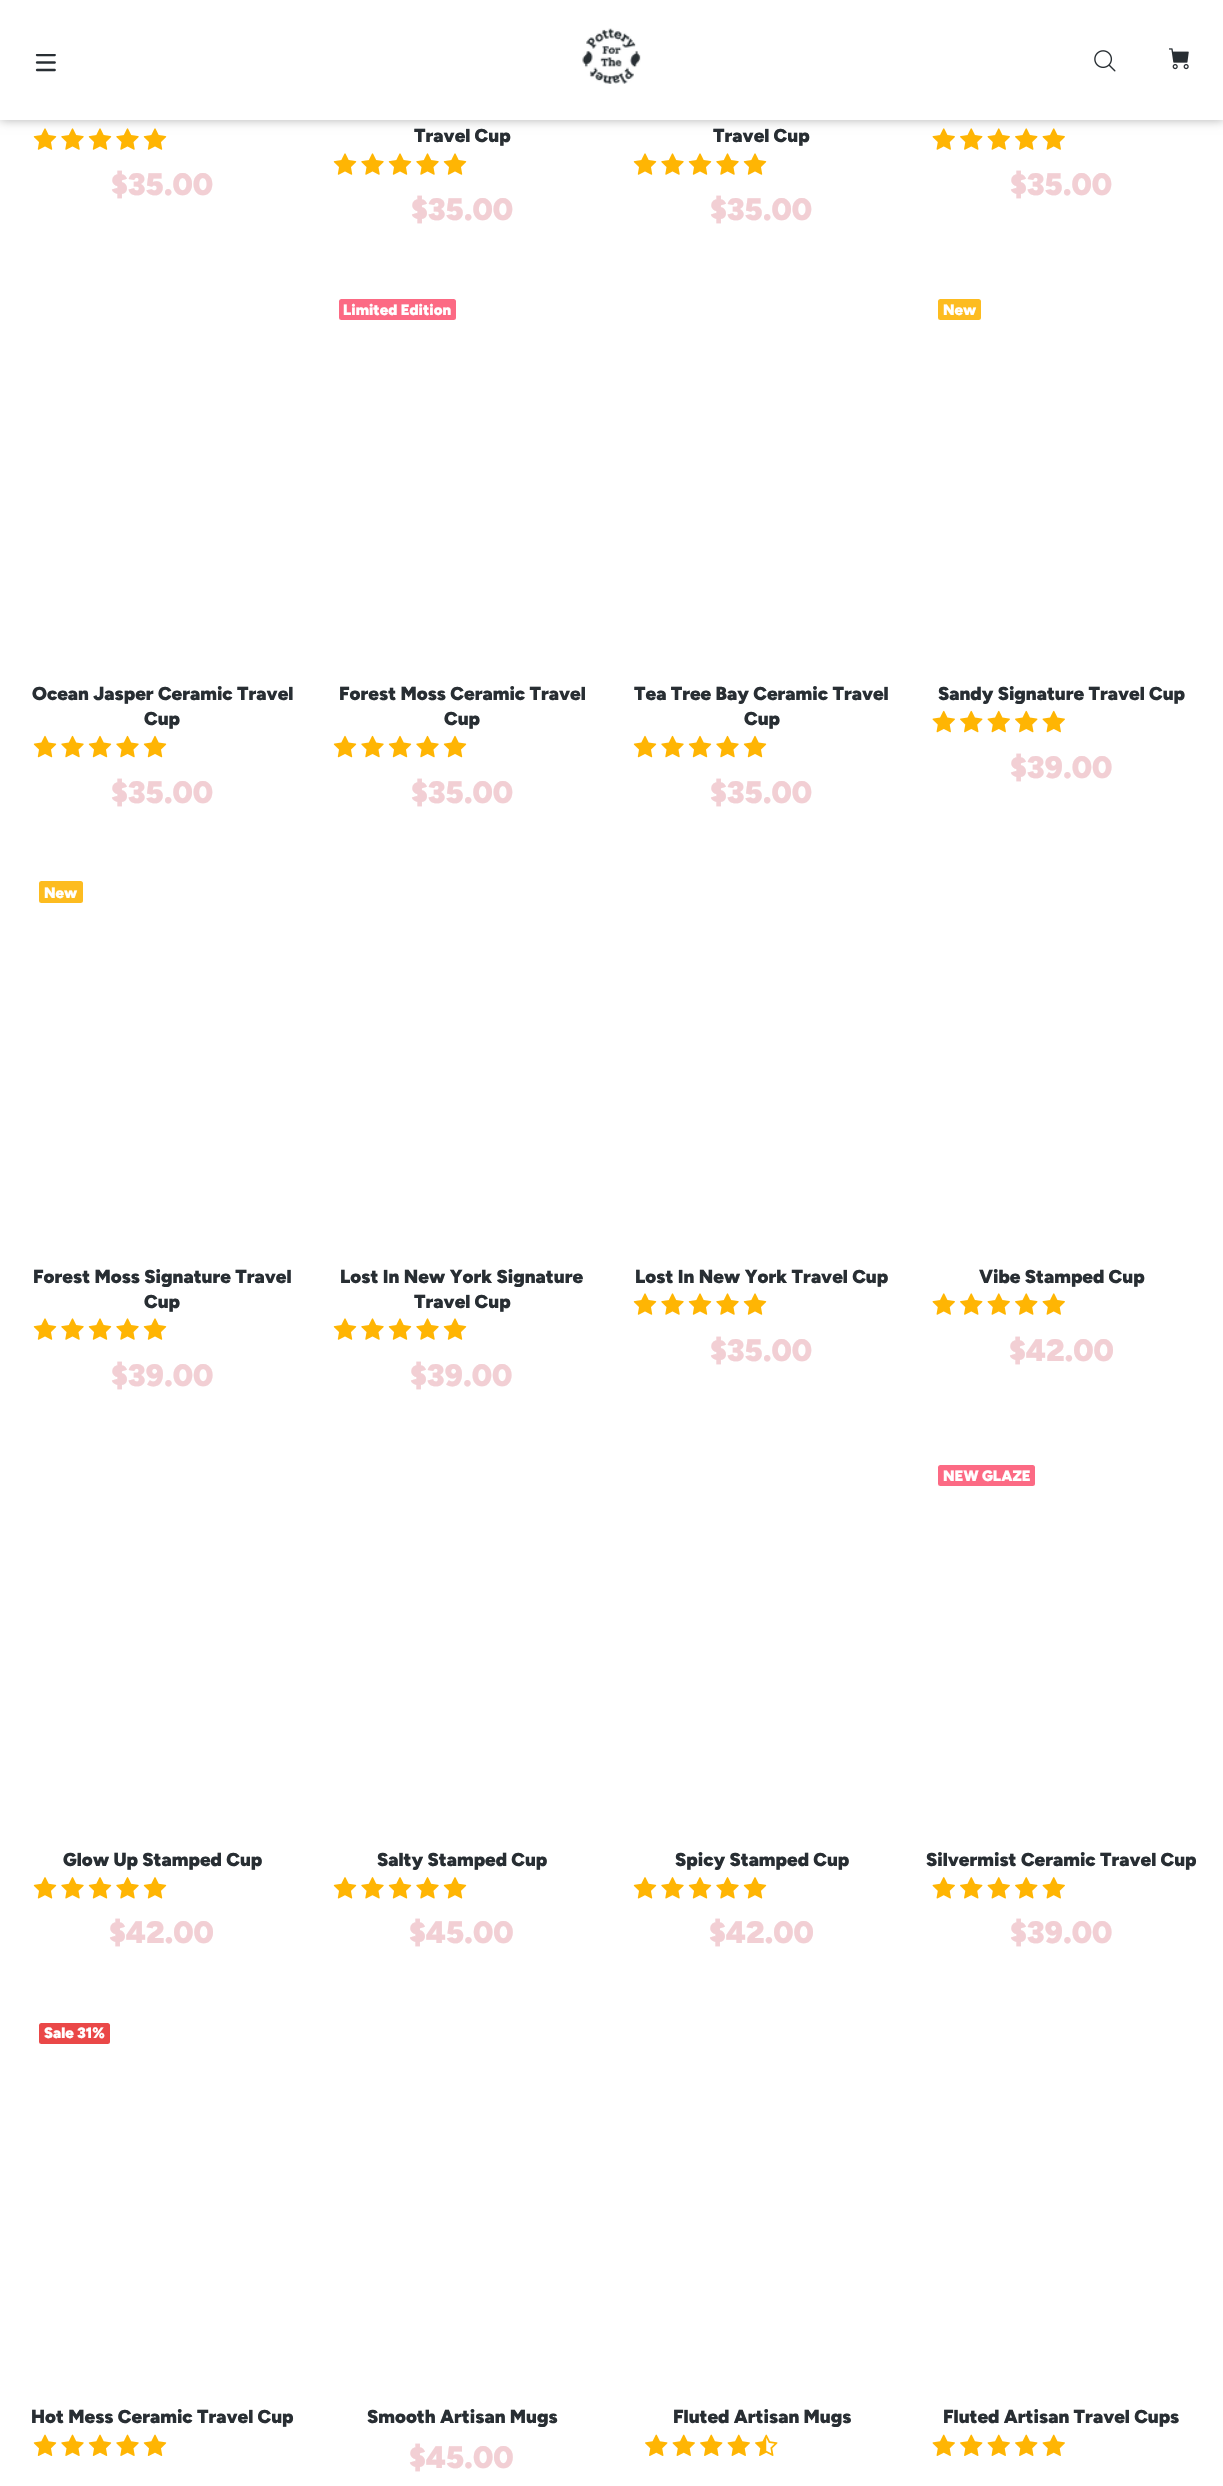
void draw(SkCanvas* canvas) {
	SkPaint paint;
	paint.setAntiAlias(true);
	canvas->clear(0xffffffff);
	canvas->drawImageRect(SkImages::DeferredFromEncodedData(SkData::MakeFromFileName("img5.png")), SkRect::MakeXYWH(33, 128, 24, 22), SkSamplingOptions());
	canvas->drawImageRect(SkImages::DeferredFromEncodedData(SkData::MakeFromFileName("img6.png")), SkRect::MakeXYWH(61, 128, 23, 22), SkSamplingOptions());
	canvas->drawImageRect(SkImages::DeferredFromEncodedData(SkData::MakeFromFileName("img5.png")), SkRect::MakeXYWH(88, 128, 24, 22), SkSamplingOptions());
	canvas->drawImageRect(SkImages::DeferredFromEncodedData(SkData::MakeFromFileName("img6.png")), SkRect::MakeXYWH(116, 128, 23, 22), SkSamplingOptions());
	canvas->drawImageRect(SkImages::DeferredFromEncodedData(SkData::MakeFromFileName("img5.png")), SkRect::MakeXYWH(143, 128, 24, 22), SkSamplingOptions());
	canvas->drawImageRect(SkImages::DeferredFromEncodedData(SkData::MakeFromFileName("img7.png")), SkRect::MakeXYWH(932, 128, 23, 22), SkSamplingOptions());
	canvas->drawImageRect(SkImages::DeferredFromEncodedData(SkData::MakeFromFileName("img8.png")), SkRect::MakeXYWH(960, 128, 23, 22), SkSamplingOptions());
	canvas->drawImageRect(SkImages::DeferredFromEncodedData(SkData::MakeFromFileName("img7.png")), SkRect::MakeXYWH(987, 128, 23, 22), SkSamplingOptions());
	canvas->drawImageRect(SkImages::DeferredFromEncodedData(SkData::MakeFromFileName("img8.png")), SkRect::MakeXYWH(1015, 128, 23, 22), SkSamplingOptions());
	canvas->drawImageRect(SkImages::DeferredFromEncodedData(SkData::MakeFromFileName("img7.png")), SkRect::MakeXYWH(1042, 128, 23, 22), SkSamplingOptions());
	paint.setColor(0x4d000000);
	paint.setMaskFilter(SkMaskFilter::MakeBlur(kNormal_SkBlurStyle, 5));
	canvas->drawRect(SkRect::MakeXYWH(0, 0, 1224, 120), paint);
	paint.setMaskFilter(nullptr);
	paint.setColor(0xffffffff);
	canvas->drawRect(SkRect::MakeXYWH(0, 0, 1223, 120), paint);
	canvas->drawImageRect(SkImages::DeferredFromEncodedData(SkData::MakeFromFileName("img1.png")), SkRect::MakeXYWH(35, 54, 21, 18), SkSamplingOptions());
	canvas->drawImageRect(SkImages::DeferredFromEncodedData(SkData::MakeFromFileName("img2.png")), SkRect::MakeXYWH(582, 28, 59, 56), SkSamplingOptions());
	canvas->drawImageRect(SkImages::DeferredFromEncodedData(SkData::MakeFromFileName("img3.png")), SkRect::MakeXYWH(1094, 50, 22, 22), SkSamplingOptions());
	canvas->drawImageRect(SkImages::DeferredFromEncodedData(SkData::MakeFromFileName("img4.png")), SkRect::MakeXYWH(1169, 48, 20, 22), SkSamplingOptions());
	SkFont f1(fontMgr->matchFamilyStyle("Figtree", SkFontStyle(900, SkFontStyle::kNormal_Width, SkFontStyle::kUpright_Slant)), 31);
	f1.setSubpixel(true);
	paint.setColor(0xfff2cfd4);
	canvas->drawString("$35.00", 111, 195, f1, paint);
	SkFont f2(fontMgr->matchFamilyStyle("Figtree", SkFontStyle(900, SkFontStyle::kNormal_Width, SkFontStyle::kUpright_Slant)), 18.75);
	f2.setSubpixel(true);
	paint.setColor(0xff282e33);
	canvas->drawString("Travel Cup", 414, 142, f2, paint);
	canvas->drawImageRect(SkImages::DeferredFromEncodedData(SkData::MakeFromFileName("img5.png")), SkRect::MakeXYWH(333, 153, 24, 22), SkSamplingOptions());
	canvas->drawImageRect(SkImages::DeferredFromEncodedData(SkData::MakeFromFileName("img6.png")), SkRect::MakeXYWH(361, 153, 23, 22), SkSamplingOptions());
	canvas->drawImageRect(SkImages::DeferredFromEncodedData(SkData::MakeFromFileName("img5.png")), SkRect::MakeXYWH(388, 153, 24, 22), SkSamplingOptions());
	canvas->drawImageRect(SkImages::DeferredFromEncodedData(SkData::MakeFromFileName("img6.png")), SkRect::MakeXYWH(416, 153, 23, 22), SkSamplingOptions());
	canvas->drawImageRect(SkImages::DeferredFromEncodedData(SkData::MakeFromFileName("img5.png")), SkRect::MakeXYWH(443, 153, 24, 22), SkSamplingOptions());
	paint.setColor(0xfff2cfd4);
	canvas->drawString("$35.00", 411, 220, f1, paint);
	paint.setColor(0xff282e33);
	canvas->drawString("Travel Cup", 713, 142, f2, paint);
	canvas->drawImageRect(SkImages::DeferredFromEncodedData(SkData::MakeFromFileName("img5.png")), SkRect::MakeXYWH(633, 153, 24, 22), SkSamplingOptions());
	canvas->drawImageRect(SkImages::DeferredFromEncodedData(SkData::MakeFromFileName("img6.png")), SkRect::MakeXYWH(661, 153, 23, 22), SkSamplingOptions());
	canvas->drawImageRect(SkImages::DeferredFromEncodedData(SkData::MakeFromFileName("img5.png")), SkRect::MakeXYWH(688, 153, 24, 22), SkSamplingOptions());
	canvas->drawImageRect(SkImages::DeferredFromEncodedData(SkData::MakeFromFileName("img6.png")), SkRect::MakeXYWH(716, 153, 23, 22), SkSamplingOptions());
	canvas->drawImageRect(SkImages::DeferredFromEncodedData(SkData::MakeFromFileName("img5.png")), SkRect::MakeXYWH(743, 153, 24, 22), SkSamplingOptions());
	paint.setColor(0xfff2cfd4);
	canvas->drawString("$35.00", 710, 220, f1, paint);
	canvas->drawString("$35.00", 1010, 195, f1, paint);
	paint.setColor(0xff282e33);
	canvas->drawString("Ocean Jasper Ceramic Travel", 32, 700, f2, paint);
	canvas->drawString("Cup", 144, 725, f2, paint);
	canvas->drawImageRect(SkImages::DeferredFromEncodedData(SkData::MakeFromFileName("img9.png")), SkRect::MakeXYWH(33, 735, 24, 23), SkSamplingOptions());
	canvas->drawImageRect(SkImages::DeferredFromEncodedData(SkData::MakeFromFileName("img10.png")), SkRect::MakeXYWH(61, 735, 23, 23), SkSamplingOptions());
	canvas->drawImageRect(SkImages::DeferredFromEncodedData(SkData::MakeFromFileName("img9.png")), SkRect::MakeXYWH(88, 735, 24, 23), SkSamplingOptions());
	canvas->drawImageRect(SkImages::DeferredFromEncodedData(SkData::MakeFromFileName("img10.png")), SkRect::MakeXYWH(116, 735, 23, 23), SkSamplingOptions());
	canvas->drawImageRect(SkImages::DeferredFromEncodedData(SkData::MakeFromFileName("img9.png")), SkRect::MakeXYWH(143, 735, 24, 23), SkSamplingOptions());
	paint.setColor(0xfff2cfd4);
	canvas->drawString("$35.00", 111, 803, f1, paint);
	paint.setColor(0xfffc6a84);
	canvas->drawRoundRect(SkRect::MakeXYWH(339, 299, 117, 21), 2.5, 2.5, paint);
	SkFont f3(fontMgr->matchFamilyStyle("Figtree", SkFontStyle(900, SkFontStyle::kNormal_Width, SkFontStyle::kUpright_Slant)), 15);
	f3.setSubpixel(true);
	paint.setColor(0xffffffff);
	canvas->drawString("Limited Edition", 343, 315, f3, paint);
	paint.setColor(0xff282e33);
	canvas->drawString("Forest Moss Ceramic Travel", 339, 700, f2, paint);
	canvas->drawString("Cup", 444, 725, f2, paint);
	canvas->drawImageRect(SkImages::DeferredFromEncodedData(SkData::MakeFromFileName("img9.png")), SkRect::MakeXYWH(333, 735, 24, 23), SkSamplingOptions());
	canvas->drawImageRect(SkImages::DeferredFromEncodedData(SkData::MakeFromFileName("img10.png")), SkRect::MakeXYWH(361, 735, 23, 23), SkSamplingOptions());
	canvas->drawImageRect(SkImages::DeferredFromEncodedData(SkData::MakeFromFileName("img9.png")), SkRect::MakeXYWH(388, 735, 24, 23), SkSamplingOptions());
	canvas->drawImageRect(SkImages::DeferredFromEncodedData(SkData::MakeFromFileName("img10.png")), SkRect::MakeXYWH(416, 735, 23, 23), SkSamplingOptions());
	canvas->drawImageRect(SkImages::DeferredFromEncodedData(SkData::MakeFromFileName("img9.png")), SkRect::MakeXYWH(443, 735, 24, 23), SkSamplingOptions());
	paint.setColor(0xfff2cfd4);
	canvas->drawString("$35.00", 411, 803, f1, paint);
	paint.setColor(0xff282e33);
	canvas->drawString("Tea Tree Bay Ceramic Travel", 634, 700, f2, paint);
	canvas->drawString("Cup", 744, 725, f2, paint);
	canvas->drawImageRect(SkImages::DeferredFromEncodedData(SkData::MakeFromFileName("img9.png")), SkRect::MakeXYWH(633, 735, 24, 23), SkSamplingOptions());
	canvas->drawImageRect(SkImages::DeferredFromEncodedData(SkData::MakeFromFileName("img10.png")), SkRect::MakeXYWH(661, 735, 23, 23), SkSamplingOptions());
	canvas->drawImageRect(SkImages::DeferredFromEncodedData(SkData::MakeFromFileName("img9.png")), SkRect::MakeXYWH(688, 735, 24, 23), SkSamplingOptions());
	canvas->drawImageRect(SkImages::DeferredFromEncodedData(SkData::MakeFromFileName("img10.png")), SkRect::MakeXYWH(716, 735, 23, 23), SkSamplingOptions());
	canvas->drawImageRect(SkImages::DeferredFromEncodedData(SkData::MakeFromFileName("img9.png")), SkRect::MakeXYWH(743, 735, 24, 23), SkSamplingOptions());
	paint.setColor(0xfff2cfd4);
	canvas->drawString("$35.00", 710, 803, f1, paint);
	paint.setColor(0xfffdbc20);
	canvas->drawRoundRect(SkRect::MakeXYWH(938, 299, 43, 21), 2.5, 2.5, paint);
	paint.setColor(0xffffffff);
	canvas->drawString("New", 943, 315, f3, paint);
	paint.setColor(0xff282e33);
	canvas->drawString("Sandy Signature Travel Cup", 938, 700, f2, paint);
	canvas->drawImageRect(SkImages::DeferredFromEncodedData(SkData::MakeFromFileName("img11.png")), SkRect::MakeXYWH(932, 710, 23, 23), SkSamplingOptions());
	canvas->drawImageRect(SkImages::DeferredFromEncodedData(SkData::MakeFromFileName("img12.png")), SkRect::MakeXYWH(960, 710, 23, 23), SkSamplingOptions());
	canvas->drawImageRect(SkImages::DeferredFromEncodedData(SkData::MakeFromFileName("img11.png")), SkRect::MakeXYWH(987, 710, 23, 23), SkSamplingOptions());
	canvas->drawImageRect(SkImages::DeferredFromEncodedData(SkData::MakeFromFileName("img12.png")), SkRect::MakeXYWH(1015, 710, 23, 23), SkSamplingOptions());
	canvas->drawImageRect(SkImages::DeferredFromEncodedData(SkData::MakeFromFileName("img11.png")), SkRect::MakeXYWH(1042, 710, 23, 23), SkSamplingOptions());
	paint.setColor(0xfff2cfd4);
	canvas->drawString("$39.00", 1010, 778, f1, paint);
	paint.setColor(0xfffdbc20);
	canvas->drawRoundRect(SkRect::MakeXYWH(39, 881, 44, 22), 2.5, 2.5, paint);
	paint.setColor(0xffffffff);
	canvas->drawString("New", 44, 898, f3, paint);
	paint.setColor(0xff282e33);
	canvas->drawString("Forest Moss Signature Travel", 33, 1283, f2, paint);
	canvas->drawString("Cup", 144, 1308, f2, paint);
	canvas->drawImageRect(SkImages::DeferredFromEncodedData(SkData::MakeFromFileName("img5.png")), SkRect::MakeXYWH(33, 1318, 24, 22), SkSamplingOptions());
	canvas->drawImageRect(SkImages::DeferredFromEncodedData(SkData::MakeFromFileName("img6.png")), SkRect::MakeXYWH(61, 1318, 23, 22), SkSamplingOptions());
	canvas->drawImageRect(SkImages::DeferredFromEncodedData(SkData::MakeFromFileName("img5.png")), SkRect::MakeXYWH(88, 1318, 24, 22), SkSamplingOptions());
	canvas->drawImageRect(SkImages::DeferredFromEncodedData(SkData::MakeFromFileName("img6.png")), SkRect::MakeXYWH(116, 1318, 23, 22), SkSamplingOptions());
	canvas->drawImageRect(SkImages::DeferredFromEncodedData(SkData::MakeFromFileName("img5.png")), SkRect::MakeXYWH(143, 1318, 24, 22), SkSamplingOptions());
	paint.setColor(0xfff2cfd4);
	canvas->drawString("$39.00", 111, 1386, f1, paint);
	paint.setColor(0xff282e33);
	canvas->drawString("Lost In New York Signature", 340, 1283, f2, paint);
	canvas->drawString("Travel Cup", 414, 1308, f2, paint);
	canvas->drawImageRect(SkImages::DeferredFromEncodedData(SkData::MakeFromFileName("img5.png")), SkRect::MakeXYWH(333, 1318, 24, 22), SkSamplingOptions());
	canvas->drawImageRect(SkImages::DeferredFromEncodedData(SkData::MakeFromFileName("img6.png")), SkRect::MakeXYWH(361, 1318, 23, 22), SkSamplingOptions());
	canvas->drawImageRect(SkImages::DeferredFromEncodedData(SkData::MakeFromFileName("img5.png")), SkRect::MakeXYWH(388, 1318, 24, 22), SkSamplingOptions());
	canvas->drawImageRect(SkImages::DeferredFromEncodedData(SkData::MakeFromFileName("img6.png")), SkRect::MakeXYWH(416, 1318, 23, 22), SkSamplingOptions());
	canvas->drawImageRect(SkImages::DeferredFromEncodedData(SkData::MakeFromFileName("img5.png")), SkRect::MakeXYWH(443, 1318, 24, 22), SkSamplingOptions());
	paint.setColor(0xfff2cfd4);
	canvas->drawString("$39.00", 410, 1386, f1, paint);
	paint.setColor(0xff282e33);
	canvas->drawString("Lost In New York Travel Cup", 635, 1283, f2, paint);
	canvas->drawImageRect(SkImages::DeferredFromEncodedData(SkData::MakeFromFileName("img5.png")), SkRect::MakeXYWH(633, 1293, 24, 22), SkSamplingOptions());
	canvas->drawImageRect(SkImages::DeferredFromEncodedData(SkData::MakeFromFileName("img6.png")), SkRect::MakeXYWH(661, 1293, 23, 22), SkSamplingOptions());
	canvas->drawImageRect(SkImages::DeferredFromEncodedData(SkData::MakeFromFileName("img5.png")), SkRect::MakeXYWH(688, 1293, 24, 22), SkSamplingOptions());
	canvas->drawImageRect(SkImages::DeferredFromEncodedData(SkData::MakeFromFileName("img6.png")), SkRect::MakeXYWH(716, 1293, 23, 22), SkSamplingOptions());
	canvas->drawImageRect(SkImages::DeferredFromEncodedData(SkData::MakeFromFileName("img5.png")), SkRect::MakeXYWH(743, 1293, 24, 22), SkSamplingOptions());
	paint.setColor(0xfff2cfd4);
	canvas->drawString("$35.00", 710, 1361, f1, paint);
	paint.setColor(0xff282e33);
	canvas->drawString("Vibe Stamped Cup", 979, 1283, f2, paint);
	canvas->drawImageRect(SkImages::DeferredFromEncodedData(SkData::MakeFromFileName("img7.png")), SkRect::MakeXYWH(932, 1293, 23, 22), SkSamplingOptions());
	canvas->drawImageRect(SkImages::DeferredFromEncodedData(SkData::MakeFromFileName("img8.png")), SkRect::MakeXYWH(960, 1293, 23, 22), SkSamplingOptions());
	canvas->drawImageRect(SkImages::DeferredFromEncodedData(SkData::MakeFromFileName("img7.png")), SkRect::MakeXYWH(987, 1293, 23, 22), SkSamplingOptions());
	canvas->drawImageRect(SkImages::DeferredFromEncodedData(SkData::MakeFromFileName("img8.png")), SkRect::MakeXYWH(1015, 1293, 23, 22), SkSamplingOptions());
	canvas->drawImageRect(SkImages::DeferredFromEncodedData(SkData::MakeFromFileName("img7.png")), SkRect::MakeXYWH(1042, 1293, 23, 22), SkSamplingOptions());
	paint.setColor(0xfff2cfd4);
	canvas->drawString("$42.00", 1009, 1361, f1, paint);
	paint.setColor(0xff282e33);
	canvas->drawString("Glow Up Stamped Cup", 63, 1866, f2, paint);
	canvas->drawImageRect(SkImages::DeferredFromEncodedData(SkData::MakeFromFileName("img13.png")), SkRect::MakeXYWH(33, 1877, 24, 22), SkSamplingOptions());
	canvas->drawImageRect(SkImages::DeferredFromEncodedData(SkData::MakeFromFileName("img14.png")), SkRect::MakeXYWH(61, 1877, 23, 22), SkSamplingOptions());
	canvas->drawImageRect(SkImages::DeferredFromEncodedData(SkData::MakeFromFileName("img13.png")), SkRect::MakeXYWH(88, 1877, 24, 22), SkSamplingOptions());
	canvas->drawImageRect(SkImages::DeferredFromEncodedData(SkData::MakeFromFileName("img14.png")), SkRect::MakeXYWH(116, 1877, 23, 22), SkSamplingOptions());
	canvas->drawImageRect(SkImages::DeferredFromEncodedData(SkData::MakeFromFileName("img13.png")), SkRect::MakeXYWH(143, 1877, 24, 22), SkSamplingOptions());
	paint.setColor(0xfff2cfd4);
	canvas->drawString("$42.00", 109, 1943, f1, paint);
	paint.setColor(0xff282e33);
	canvas->drawString("Salty Stamped Cup", 377, 1866, f2, paint);
	canvas->drawImageRect(SkImages::DeferredFromEncodedData(SkData::MakeFromFileName("img13.png")), SkRect::MakeXYWH(333, 1877, 24, 22), SkSamplingOptions());
	canvas->drawImageRect(SkImages::DeferredFromEncodedData(SkData::MakeFromFileName("img14.png")), SkRect::MakeXYWH(361, 1877, 23, 22), SkSamplingOptions());
	canvas->drawImageRect(SkImages::DeferredFromEncodedData(SkData::MakeFromFileName("img13.png")), SkRect::MakeXYWH(388, 1877, 24, 22), SkSamplingOptions());
	canvas->drawImageRect(SkImages::DeferredFromEncodedData(SkData::MakeFromFileName("img14.png")), SkRect::MakeXYWH(416, 1877, 23, 22), SkSamplingOptions());
	canvas->drawImageRect(SkImages::DeferredFromEncodedData(SkData::MakeFromFileName("img13.png")), SkRect::MakeXYWH(443, 1877, 24, 22), SkSamplingOptions());
	paint.setColor(0xfff2cfd4);
	canvas->drawString("$45.00", 409, 1943, f1, paint);
	paint.setColor(0xff282e33);
	canvas->drawString("Spicy Stamped Cup", 675, 1866, f2, paint);
	canvas->drawImageRect(SkImages::DeferredFromEncodedData(SkData::MakeFromFileName("img13.png")), SkRect::MakeXYWH(633, 1877, 24, 22), SkSamplingOptions());
	canvas->drawImageRect(SkImages::DeferredFromEncodedData(SkData::MakeFromFileName("img14.png")), SkRect::MakeXYWH(661, 1877, 23, 22), SkSamplingOptions());
	canvas->drawImageRect(SkImages::DeferredFromEncodedData(SkData::MakeFromFileName("img13.png")), SkRect::MakeXYWH(688, 1877, 24, 22), SkSamplingOptions());
	canvas->drawImageRect(SkImages::DeferredFromEncodedData(SkData::MakeFromFileName("img14.png")), SkRect::MakeXYWH(716, 1877, 23, 22), SkSamplingOptions());
	canvas->drawImageRect(SkImages::DeferredFromEncodedData(SkData::MakeFromFileName("img13.png")), SkRect::MakeXYWH(743, 1877, 24, 22), SkSamplingOptions());
	paint.setColor(0xfff2cfd4);
	canvas->drawString("$42.00", 709, 1943, f1, paint);
	paint.setColor(0xfffc6a84);
	canvas->drawRoundRect(SkRect::MakeXYWH(938, 1465, 97, 21), 2.5, 2.5, paint);
	paint.setColor(0xffffffff);
	canvas->drawString("NEW GLAZE", 943, 1481, f3, paint);
	paint.setColor(0xff282e33);
	canvas->drawString("Silvermist Ceramic Travel Cup", 926, 1866, f2, paint);
	canvas->drawImageRect(SkImages::DeferredFromEncodedData(SkData::MakeFromFileName("img15.png")), SkRect::MakeXYWH(932, 1877, 23, 22), SkSamplingOptions());
	canvas->drawImageRect(SkImages::DeferredFromEncodedData(SkData::MakeFromFileName("img16.png")), SkRect::MakeXYWH(960, 1877, 23, 22), SkSamplingOptions());
	canvas->drawImageRect(SkImages::DeferredFromEncodedData(SkData::MakeFromFileName("img15.png")), SkRect::MakeXYWH(987, 1877, 23, 22), SkSamplingOptions());
	canvas->drawImageRect(SkImages::DeferredFromEncodedData(SkData::MakeFromFileName("img16.png")), SkRect::MakeXYWH(1015, 1877, 23, 22), SkSamplingOptions());
	canvas->drawImageRect(SkImages::DeferredFromEncodedData(SkData::MakeFromFileName("img15.png")), SkRect::MakeXYWH(1042, 1877, 23, 22), SkSamplingOptions());
	paint.setColor(0xfff2cfd4);
	canvas->drawString("$39.00", 1010, 1943, f1, paint);
	paint.setColor(0xffea4848);
	canvas->drawRoundRect(SkRect::MakeXYWH(39, 2023, 71, 21), 2.5, 2.5, paint);
	paint.setColor(0xffffffff);
	canvas->drawString("Sale 31%", 44, 2038, f3, paint);
	paint.setColor(0xff282e33);
	canvas->drawString("Hot Mess Ceramic Travel Cup", 31, 2423, f2, paint);
	canvas->drawImageRect(SkImages::DeferredFromEncodedData(SkData::MakeFromFileName("img17.png")), SkRect::MakeXYWH(33, 2434, 24, 22), SkSamplingOptions());
	canvas->drawImageRect(SkImages::DeferredFromEncodedData(SkData::MakeFromFileName("img18.png")), SkRect::MakeXYWH(61, 2434, 23, 22), SkSamplingOptions());
	canvas->drawImageRect(SkImages::DeferredFromEncodedData(SkData::MakeFromFileName("img17.png")), SkRect::MakeXYWH(88, 2434, 24, 22), SkSamplingOptions());
	canvas->drawImageRect(SkImages::DeferredFromEncodedData(SkData::MakeFromFileName("img18.png")), SkRect::MakeXYWH(116, 2434, 23, 22), SkSamplingOptions());
	canvas->drawImageRect(SkImages::DeferredFromEncodedData(SkData::MakeFromFileName("img17.png")), SkRect::MakeXYWH(143, 2434, 24, 22), SkSamplingOptions());
	canvas->drawString("Smooth Artisan Mugs", 367, 2423, f2, paint);
	paint.setColor(0xfff2cfd4);
	canvas->drawString("$45.00", 409, 2468, f1, paint);
	paint.setColor(0xff282e33);
	canvas->drawString("Fluted Artisan Mugs", 673, 2423, f2, paint);
	canvas->drawImageRect(SkImages::DeferredFromEncodedData(SkData::MakeFromFileName("img19.png")), SkRect::MakeXYWH(645, 2434, 23, 22), SkSamplingOptions());
	canvas->drawImageRect(SkImages::DeferredFromEncodedData(SkData::MakeFromFileName("img20.png")), SkRect::MakeXYWH(672, 2434, 23, 22), SkSamplingOptions());
	canvas->drawImageRect(SkImages::DeferredFromEncodedData(SkData::MakeFromFileName("img19.png")), SkRect::MakeXYWH(700, 2434, 23, 22), SkSamplingOptions());
	canvas->drawImageRect(SkImages::DeferredFromEncodedData(SkData::MakeFromFileName("img20.png")), SkRect::MakeXYWH(727, 2434, 23, 22), SkSamplingOptions());
	canvas->drawImageRect(SkImages::DeferredFromEncodedData(SkData::MakeFromFileName("img21.png")), SkRect::MakeXYWH(755, 2434, 23, 22), SkSamplingOptions());
	canvas->drawString("Fluted Artisan Travel Cups", 943, 2423, f2, paint);
	canvas->drawImageRect(SkImages::DeferredFromEncodedData(SkData::MakeFromFileName("img20.png")), SkRect::MakeXYWH(932, 2434, 23, 22), SkSamplingOptions());
	canvas->drawImageRect(SkImages::DeferredFromEncodedData(SkData::MakeFromFileName("img19.png")), SkRect::MakeXYWH(960, 2434, 23, 22), SkSamplingOptions());
	canvas->drawImageRect(SkImages::DeferredFromEncodedData(SkData::MakeFromFileName("img20.png")), SkRect::MakeXYWH(987, 2434, 23, 22), SkSamplingOptions());
	canvas->drawImageRect(SkImages::DeferredFromEncodedData(SkData::MakeFromFileName("img19.png")), SkRect::MakeXYWH(1015, 2434, 23, 22), SkSamplingOptions());
	canvas->drawImageRect(SkImages::DeferredFromEncodedData(SkData::MakeFromFileName("img20.png")), SkRect::MakeXYWH(1042, 2434, 23, 22), SkSamplingOptions());
}
